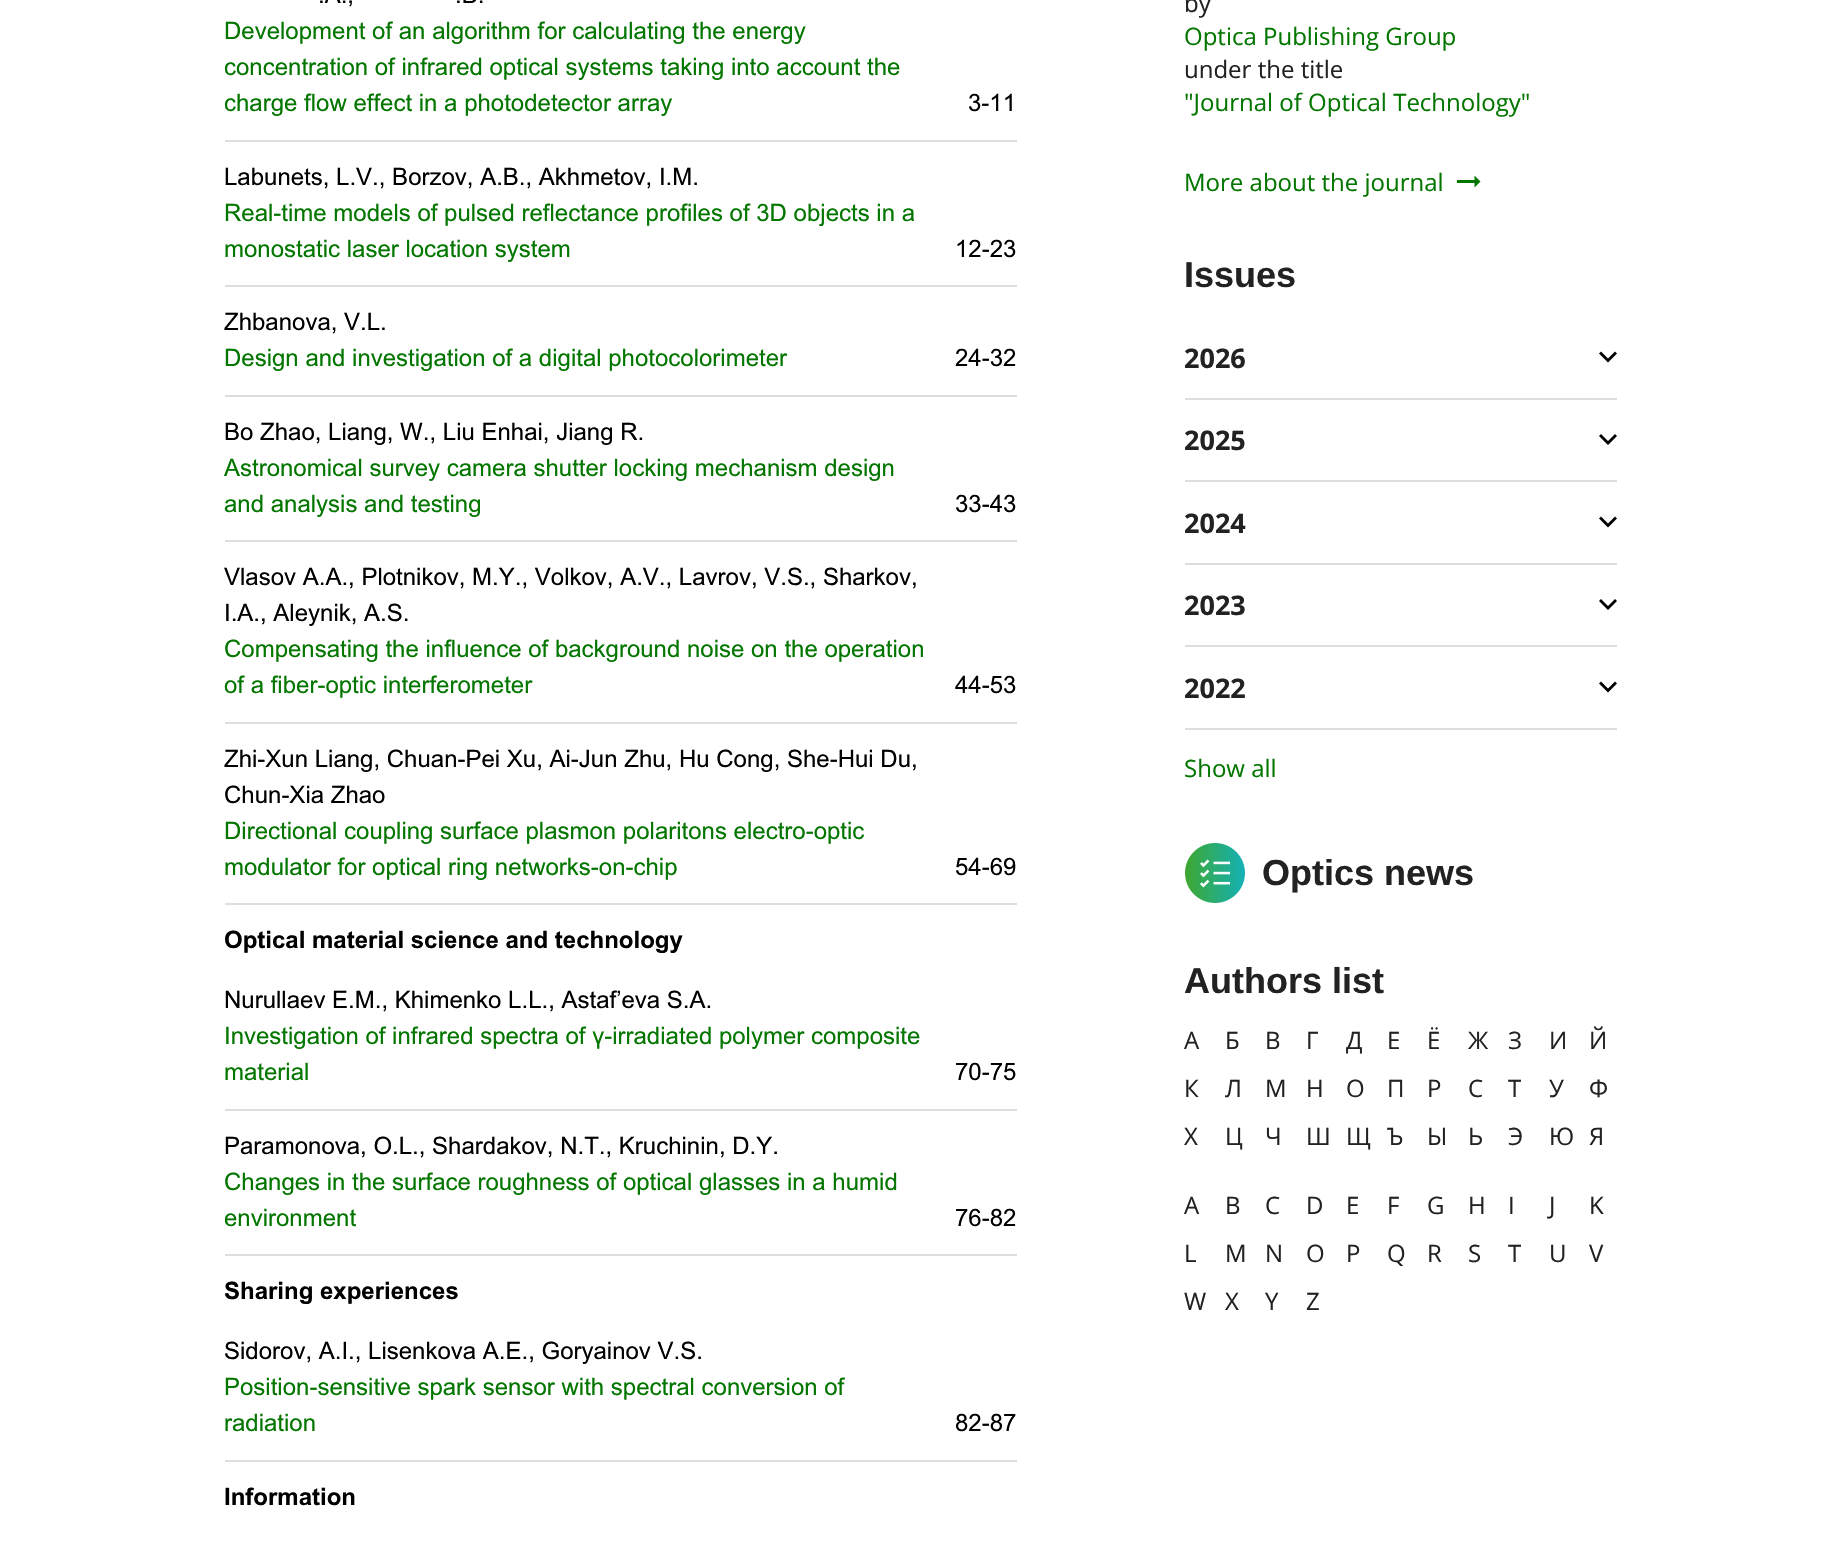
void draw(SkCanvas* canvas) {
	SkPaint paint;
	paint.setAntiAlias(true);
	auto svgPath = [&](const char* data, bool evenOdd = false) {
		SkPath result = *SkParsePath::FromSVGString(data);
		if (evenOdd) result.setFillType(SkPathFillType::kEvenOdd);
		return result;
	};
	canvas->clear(0xffffffff);
	paint.setColor(0xffdedede);
	canvas->drawRect(SkRect::MakeXYWH(225, 140, 792, 2), paint);
	SkFont f1(fontMgr->matchFamilyStyle("Arial", SkFontStyle::Normal()), 24);
	f1.setSubpixel(true);
	paint.setColor(0xff000000);
	canvas->drawString(".А.,", 318, 3, f1, paint);
	canvas->drawString(".B.", 455, 3, f1, paint);
	paint.setColor(0xff037600);
	canvas->drawString("Development of an algorithm for calculating the energy", 224, 39, f1, paint);
	canvas->drawString("concentration of infrared optical systems taking into account the", 224, 75, f1, paint);
	canvas->drawString("charge flow effect in a photodetector array", 224, 111, f1, paint);
	paint.setColor(0xff000000);
	canvas->drawString("3-11", 968, 111, f1, paint);
	paint.setColor(0xffdedede);
	canvas->drawRect(SkRect::MakeXYWH(225, 285, 792, 2), paint);
	paint.setColor(0xff000000);
	canvas->drawString("Labunets, L.V., Borzov, A.B., Akhmetov, I.M.", 224, 185, f1, paint);
	paint.setColor(0xff037600);
	canvas->drawString("Real-time models of pulsed reflectance profiles of 3D objects in a", 224, 221, f1, paint);
	canvas->drawString("monostatic laser location system", 224, 257, f1, paint);
	paint.setColor(0xff000000);
	canvas->drawString("12-23", 955, 257, f1, paint);
	paint.setColor(0xffdedede);
	canvas->drawRect(SkRect::MakeXYWH(225, 395, 792, 2), paint);
	paint.setColor(0xff000000);
	canvas->drawString("Zhbanova, V.L.", 224, 330, f1, paint);
	paint.setColor(0xff037600);
	canvas->drawString("Design and investigation of a digital photocolorimeter", 224, 366, f1, paint);
	paint.setColor(0xff000000);
	canvas->drawString("24-32", 955, 366, f1, paint);
	paint.setColor(0xffdedede);
	canvas->drawRect(SkRect::MakeXYWH(225, 540, 792, 2), paint);
	paint.setColor(0xff000000);
	canvas->drawString("Bo Zhao, Liang, W., Liu Enhai, Jiang R.", 224, 440, f1, paint);
	paint.setColor(0xff037600);
	canvas->drawString("Astronomical survey camera shutter locking mechanism design", 224, 476, f1, paint);
	canvas->drawString("and analysis and testing", 224, 512, f1, paint);
	paint.setColor(0xff000000);
	canvas->drawString("33-43", 955, 512, f1, paint);
	paint.setColor(0xffdedede);
	canvas->drawRect(SkRect::MakeXYWH(225, 722, 792, 2), paint);
	paint.setColor(0xff000000);
	canvas->drawString("Vlasov А.А., Plotnikov, M.Y., Volkov, A.V., Lavrov, V.S., Sharkov,", 224, 585, f1, paint);
	canvas->drawString("I.A., Aleynik, А.S.", 224, 621, f1, paint);
	paint.setColor(0xff037600);
	canvas->drawString("Compensating the influence of background noise on the operation", 224, 657, f1, paint);
	canvas->drawString("of a fiber-optic interferometer", 224, 693, f1, paint);
	paint.setColor(0xff000000);
	canvas->drawString("44-53", 955, 693, f1, paint);
	paint.setColor(0xffdedede);
	canvas->drawRect(SkRect::MakeXYWH(225, 903, 792, 2), paint);
	paint.setColor(0xff000000);
	canvas->drawString("Zhi-Xun Liang, Chuan-Pei Xu, Ai-Jun Zhu, Hu Cong, She-Hui Du,", 224, 767, f1, paint);
	canvas->drawString("Chun-Xia Zhao", 224, 803, f1, paint);
	paint.setColor(0xff037600);
	canvas->drawString("Directional coupling surface plasmon polaritons electro-optic", 224, 839, f1, paint);
	canvas->drawString("modulator for optical ring networks-on-chip", 224, 875, f1, paint);
	paint.setColor(0xff000000);
	canvas->drawString("54-69", 955, 875, f1, paint);
	paint.setColor(0xffdedede);
	canvas->drawRect(SkRect::MakeXYWH(225, 1109, 792, 2), paint);
	SkFont f2(fontMgr->matchFamilyStyle("Arial", SkFontStyle::Bold()), 24);
	f2.setSubpixel(true);
	paint.setColor(0xff000000);
	canvas->drawString("Optical material science and technology", 224, 948, f2, paint);
	canvas->drawString("Nurullaev E.M., Khimenko L.L., Astaf’eva S.A.", 224, 1008, f1, paint);
	paint.setColor(0xff037600);
	canvas->drawString("Investigation of infrared spectra of γ-irradiated polymer composite", 224, 1044, f1, paint);
	canvas->drawString("material", 224, 1080, f1, paint);
	paint.setColor(0xff000000);
	canvas->drawString("70-75", 955, 1080, f1, paint);
	paint.setColor(0xffdedede);
	canvas->drawRect(SkRect::MakeXYWH(225, 1254, 792, 2), paint);
	paint.setColor(0xff000000);
	canvas->drawString("Paramonova, O.L., Shardakov, N.Т., Kruchinin, D.Y.", 224, 1154, f1, paint);
	paint.setColor(0xff037600);
	canvas->drawString("Changes in the surface roughness of optical glasses in a humid", 224, 1190, f1, paint);
	canvas->drawString("environment", 224, 1226, f1, paint);
	paint.setColor(0xff000000);
	canvas->drawString("76-82", 955, 1226, f1, paint);
	paint.setColor(0xffdedede);
	canvas->drawRect(SkRect::MakeXYWH(225, 1460, 792, 2), paint);
	paint.setColor(0xff000000);
	canvas->drawString("Sharing experiences", 224, 1299, f2, paint);
	canvas->drawString("Sidorov, A.I., Lisenkova A.E., Goryainov V.S.", 224, 1359, f1, paint);
	paint.setColor(0xff037600);
	canvas->drawString("Position-sensitive spark sensor with spectral conversion of", 224, 1395, f1, paint);
	canvas->drawString("radiation", 224, 1431, f1, paint);
	paint.setColor(0xff000000);
	canvas->drawString("82-87", 955, 1431, f1, paint);
	canvas->drawString("Information", 224, 1505, f2, paint);
	SkFont f3(fontMgr->matchFamilyStyle("Open Sans", SkFontStyle::Normal()), 24);
	f3.setSubpixel(true);
	paint.setColor(0xff222222);
	canvas->drawString("by", 1184, 12, f3, paint);
	paint.setColor(0xff037600);
	canvas->drawString("Optica Publishing Group", 1184, 45, f3, paint);
	paint.setColor(0xff222222);
	canvas->drawString("under the title", 1184, 78, f3, paint);
	paint.setColor(0xff037600);
	canvas->drawString("\"Journal of Optical Technology\"", 1184, 111, f3, paint);
	canvas->drawString("More about the journal", 1184, 191, f3, paint);
	canvas->save();
	canvas->clipRect(SkRect::MakeXYWH(1457, 176, 24, 12));
	canvas->drawPath(svgPath("M1474.5 180H1456.5V183H1474.5V187.5L1480.5 181.5L1474.5 175.5Z"), paint);
	canvas->restore();
	SkFont f4(fontMgr->matchFamilyStyle("Liberation Sans", SkFontStyle::Bold()), 36);
	f4.setSubpixel(true);
	paint.setColor(0xff222222);
	canvas->drawString("Issues", 1184, 287, f4, paint);
	paint.setColor(0xffdedede);
	canvas->drawRect(SkRect::MakeXYWH(1185, 398, 432, 2), paint);
	SkFont f5(fontMgr->matchFamilyStyle("Open Sans", SkFontStyle::Bold()), 27);
	f5.setSubpixel(true);
	paint.setColor(0xff222222);
	canvas->drawString("2026", 1184, 368, f5, paint);
	paint.setColor(0xff000000);
	canvas->drawPath(svgPath("M1615 351.5L1608 358.5L1601 351.5L1599 353.5L1608 362.5L1617 353.5Z"), paint);
	paint.setColor(0xffdedede);
	canvas->drawRect(SkRect::MakeXYWH(1185, 480, 432, 2), paint);
	paint.setColor(0xff222222);
	canvas->drawString("2025", 1184, 450, f5, paint);
	paint.setColor(0xff000000);
	canvas->drawPath(svgPath("M1615 434L1608 441L1601 434L1599 436L1608 445L1617 436Z"), paint);
	paint.setColor(0xffdedede);
	canvas->drawRect(SkRect::MakeXYWH(1185, 563, 432, 2), paint);
	paint.setColor(0xff222222);
	canvas->drawString("2024", 1184, 533, f5, paint);
	paint.setColor(0xff000000);
	canvas->drawPath(svgPath("M1615 516.5L1608 523.5L1601 516.5L1599 518.5L1608 527.5L1617 518.5Z"), paint);
	paint.setColor(0xffdedede);
	canvas->drawRect(SkRect::MakeXYWH(1185, 645, 432, 2), paint);
	paint.setColor(0xff222222);
	canvas->drawString("2023", 1184, 615, f5, paint);
	paint.setColor(0xff000000);
	canvas->drawPath(svgPath("M1615 599L1608 606L1601 599L1599 601L1608 610L1617 601Z"), paint);
	paint.setColor(0xffdedede);
	canvas->drawRect(SkRect::MakeXYWH(1185, 728, 432, 2), paint);
	paint.setColor(0xff222222);
	canvas->drawString("2022", 1184, 698, f5, paint);
	paint.setColor(0xff000000);
	canvas->drawPath(svgPath("M1615 681.5L1608 688.5L1601 681.5L1599 683.5L1608 692.5L1617 683.5Z"), paint);
	paint.setColor(0xff037600);
	canvas->drawString("Show all", 1184, 777, f3, paint);
	canvas->drawImageRect(SkImages::DeferredFromEncodedData(SkData::MakeFromFileName("img1.png")), SkRect::MakeXYWH(1185, 843, 60, 60), SkSamplingOptions());
	paint.setColor(0xff222222);
	canvas->drawString("Optics news", 1262, 885, f4, paint);
	canvas->drawString("Authors list", 1184, 993, f4, paint);
	canvas->drawString("А", 1184, 1049, f3, paint);
	canvas->drawString("Б", 1225, 1049, f3, paint);
	canvas->drawString("В", 1265, 1049, f3, paint);
	canvas->drawString("Г", 1306, 1049, f3, paint);
	canvas->drawString("Д", 1346, 1049, f3, paint);
	canvas->drawString("Е", 1387, 1049, f3, paint);
	canvas->drawString("Ё", 1427, 1049, f3, paint);
	canvas->drawString("Ж", 1468, 1049, f3, paint);
	canvas->drawString("З", 1508, 1049, f3, paint);
	canvas->drawString("И", 1549, 1049, f3, paint);
	canvas->drawString("Й", 1589, 1049, f3, paint);
	canvas->drawString("К", 1184, 1097, f3, paint);
	canvas->drawString("Л", 1225, 1097, f3, paint);
	canvas->drawString("М", 1265, 1097, f3, paint);
	canvas->drawString("Н", 1306, 1097, f3, paint);
	canvas->drawString("О", 1346, 1097, f3, paint);
	canvas->drawString("П", 1387, 1097, f3, paint);
	canvas->drawString("Р", 1427, 1097, f3, paint);
	canvas->drawString("С", 1468, 1097, f3, paint);
	canvas->drawString("Т", 1508, 1097, f3, paint);
	canvas->drawString("У", 1549, 1097, f3, paint);
	canvas->drawString("Ф", 1589, 1097, f3, paint);
	canvas->drawString("Х", 1184, 1145, f3, paint);
	canvas->drawString("Ц", 1225, 1145, f3, paint);
	canvas->drawString("Ч", 1265, 1145, f3, paint);
	canvas->drawString("Ш", 1306, 1145, f3, paint);
	canvas->drawString("Щ", 1346, 1145, f3, paint);
	canvas->drawString("Ъ", 1387, 1145, f3, paint);
	canvas->drawString("Ы", 1427, 1145, f3, paint);
	canvas->drawString("Ь", 1468, 1145, f3, paint);
	canvas->drawString("Э", 1508, 1145, f3, paint);
	canvas->drawString("Ю", 1549, 1145, f3, paint);
	canvas->drawString("Я", 1589, 1145, f3, paint);
	canvas->drawString("A", 1184, 1214, f3, paint);
	canvas->drawString("B", 1225, 1214, f3, paint);
	canvas->drawString("C", 1265, 1214, f3, paint);
	canvas->drawString("D", 1306, 1214, f3, paint);
	canvas->drawString("E", 1346, 1214, f3, paint);
	canvas->drawString("F", 1387, 1214, f3, paint);
	canvas->drawString("G", 1427, 1214, f3, paint);
	canvas->drawString("H", 1468, 1214, f3, paint);
	canvas->drawString("I", 1508, 1214, f3, paint);
	canvas->drawString("J", 1549, 1214, f3, paint);
	canvas->drawString("K", 1589, 1214, f3, paint);
	canvas->drawString("L", 1184, 1262, f3, paint);
	canvas->drawString("M", 1225, 1262, f3, paint);
	canvas->drawString("N", 1265, 1262, f3, paint);
	canvas->drawString("O", 1306, 1262, f3, paint);
	canvas->drawString("P", 1346, 1262, f3, paint);
	canvas->drawString("Q", 1387, 1262, f3, paint);
	canvas->drawString("R", 1427, 1262, f3, paint);
	canvas->drawString("S", 1468, 1262, f3, paint);
	canvas->drawString("T", 1508, 1262, f3, paint);
	canvas->drawString("U", 1549, 1262, f3, paint);
	canvas->drawString("V", 1589, 1262, f3, paint);
	canvas->drawString("W", 1184, 1310, f3, paint);
	canvas->drawString("X", 1225, 1310, f3, paint);
	canvas->drawString("Y", 1265, 1310, f3, paint);
	canvas->drawString("Z", 1306, 1310, f3, paint);
}
